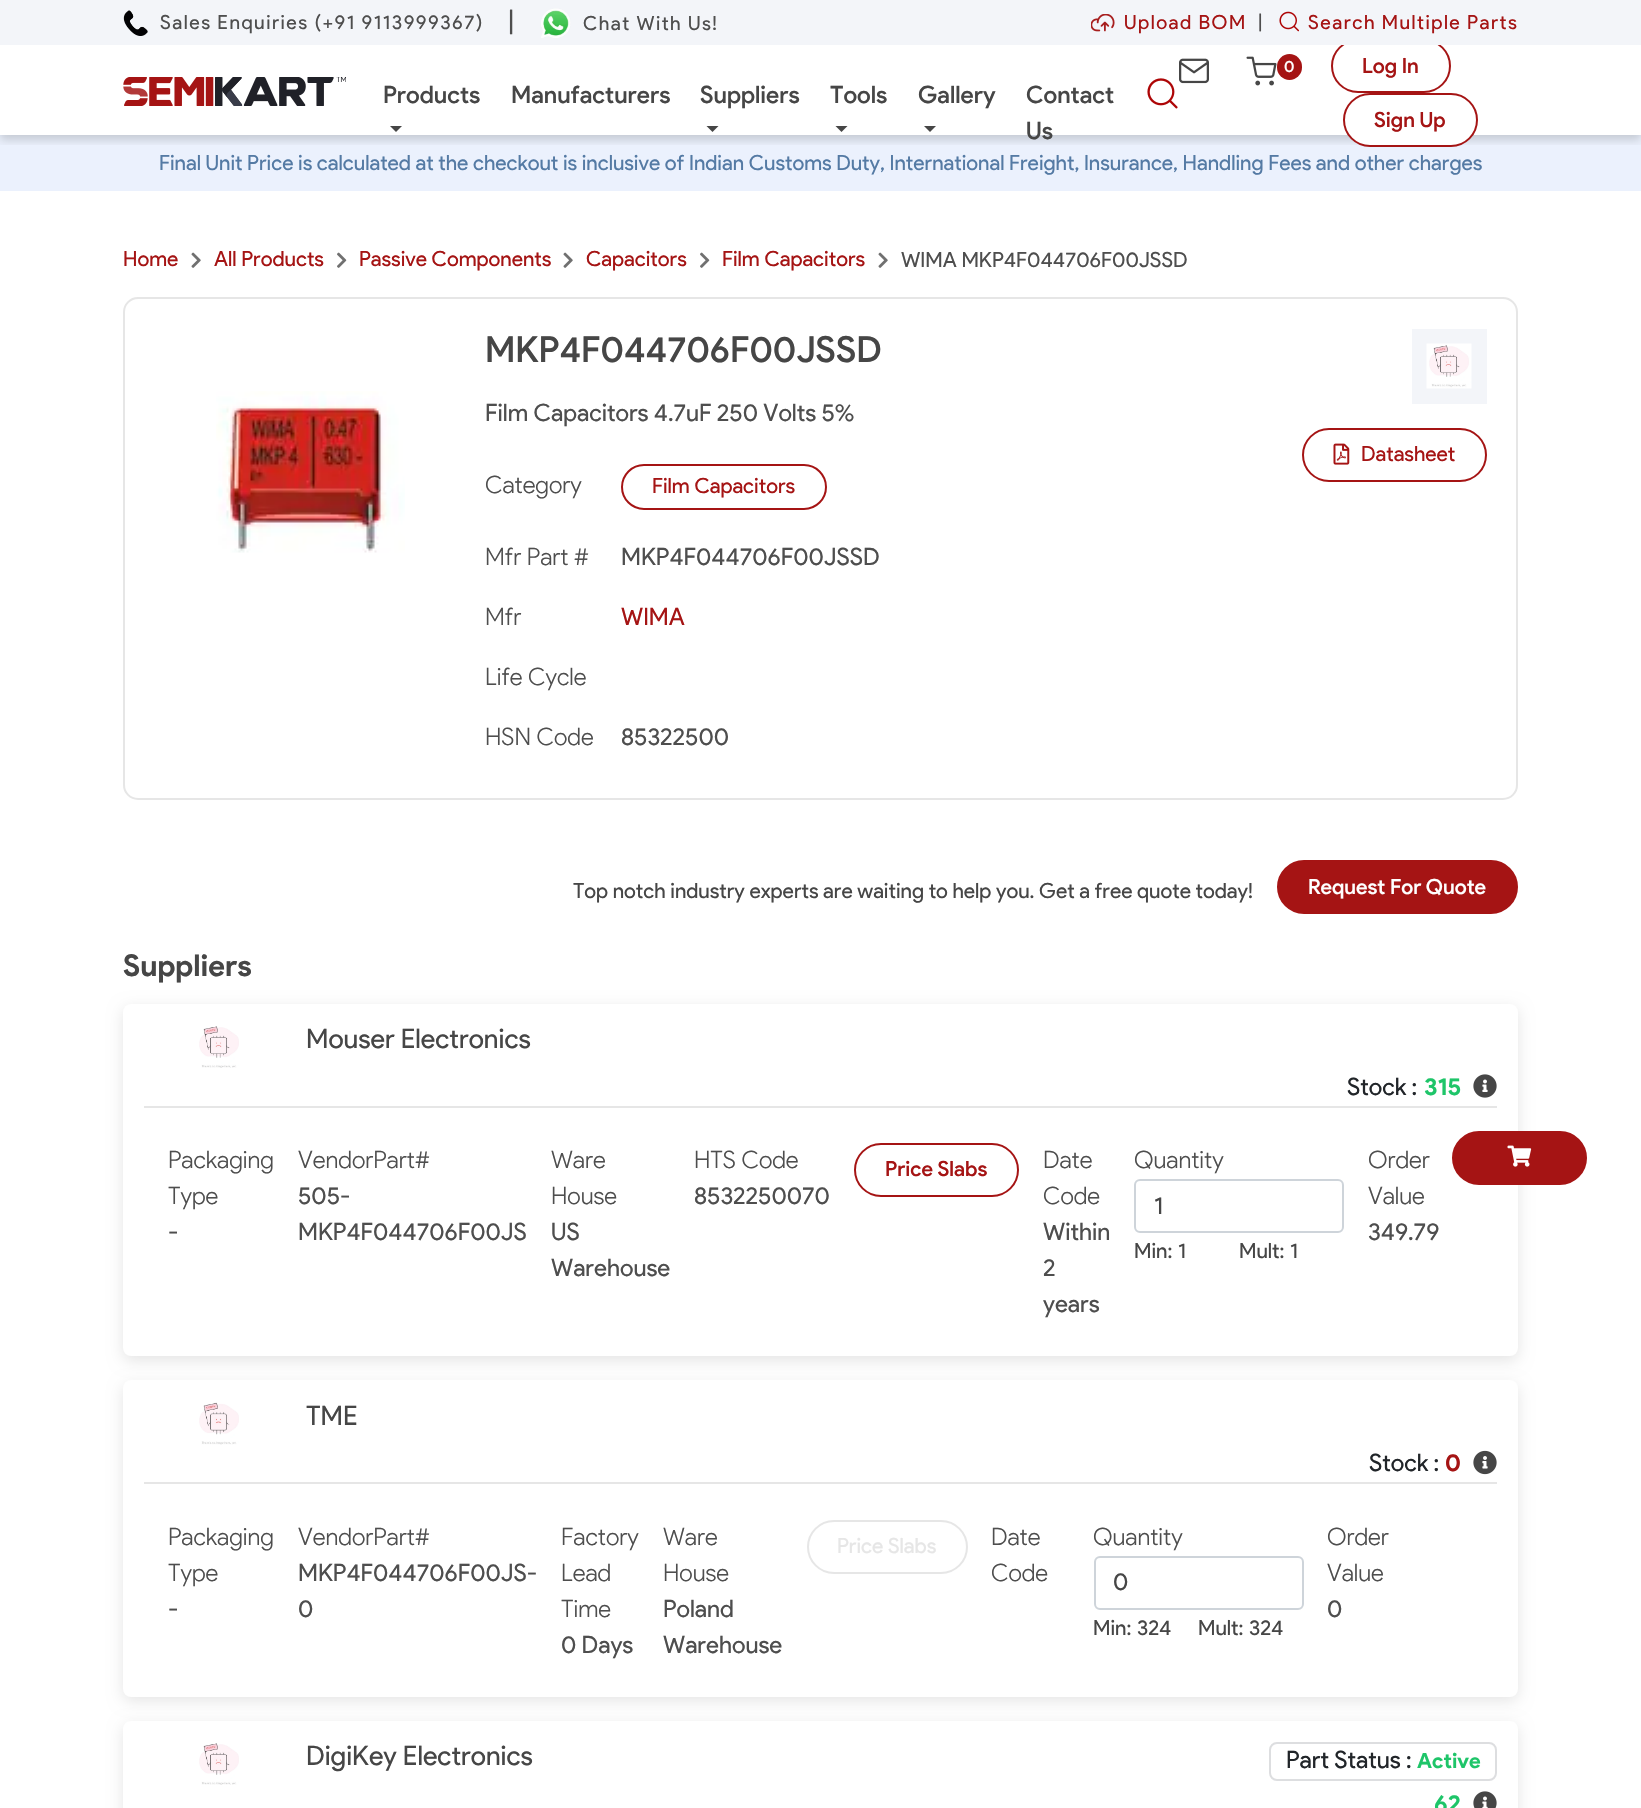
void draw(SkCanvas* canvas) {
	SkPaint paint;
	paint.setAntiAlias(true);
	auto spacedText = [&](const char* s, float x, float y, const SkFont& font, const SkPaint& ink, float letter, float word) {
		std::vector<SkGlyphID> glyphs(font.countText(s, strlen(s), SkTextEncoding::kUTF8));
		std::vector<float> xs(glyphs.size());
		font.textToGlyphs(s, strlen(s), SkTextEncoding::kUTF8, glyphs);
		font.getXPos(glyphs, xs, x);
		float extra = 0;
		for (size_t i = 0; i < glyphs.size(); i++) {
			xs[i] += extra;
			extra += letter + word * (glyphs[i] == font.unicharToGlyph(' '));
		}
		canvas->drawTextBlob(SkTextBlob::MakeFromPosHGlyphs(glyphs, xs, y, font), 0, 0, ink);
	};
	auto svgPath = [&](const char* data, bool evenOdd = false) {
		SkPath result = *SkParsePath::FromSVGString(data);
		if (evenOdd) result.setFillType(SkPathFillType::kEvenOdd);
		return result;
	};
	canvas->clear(0xffffffff);
	paint.setColor(0xffebf1fd);
	canvas->drawRect(SkRect::MakeXYWH(0, 135, 1641, 56), paint);
	canvas->save();
	canvas->clipRect(SkRect::MakeXYWH(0, 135, 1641, 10));
	paint.setColor(0x29000000);
	paint.setMaskFilter(SkMaskFilter::MakeBlur(kNormal_SkBlurStyle, 4.5));
	canvas->drawRect(SkRect::MakeXYWH(0, 50, 1641, 90), paint);
	paint.setMaskFilter(nullptr);
	canvas->restore();
	paint.setColor(0xffffffff);
	canvas->drawRoundRect(SkRect::MakeXYWH(1332, 40, 118, 52), 26, 26, paint);
	paint.setStroke(true);
	paint.setStrokeWidth(2);
	paint.setColor(0xffa51414);
	canvas->drawRoundRect(SkRect::MakeXYWH(1332, 40, 118, 52), 26, 26, paint);
	paint.setStroke(false);
	paint.setColor(0xfff3f5f9);
	canvas->drawRect(SkRect::MakeXYWH(0, 0, 1641, 45), paint);
	canvas->drawImageRect(SkImages::DeferredFromEncodedData(SkData::MakeFromFileName("img1.png")), SkRect::MakeXYWH(123, 10, 25, 26), SkSamplingOptions());
	SkFont f1(fontMgr->matchFamilyStyle("Product Sans", SkFontStyle::Normal()), 19.5);
	f1.setSubpixel(true);
	paint.setColor(0xff4e4e4e);
	spacedText("Sales Enquiries (+91 9113999367)", 160, 29, f1, paint, 1.5, 0);
	SkFont f2(fontMgr->matchFamilyStyle("Product Sans", SkFontStyle::Normal()), 27);
	f2.setSubpixel(true);
	spacedText("|", 508, 31, f2, paint, 1.5, 0);
	canvas->drawImageRect(SkImages::DeferredFromEncodedData(SkData::MakeFromFileName("img2.png")), SkRect::MakeXYWH(541, 8, 30, 30), SkSamplingOptions());
	spacedText("Chat With Us!", 583, 30, f1, paint, 1.5, 0);
	canvas->drawImageRect(SkImages::DeferredFromEncodedData(SkData::MakeFromFileName("img3.png")), SkRect::MakeXYWH(1091, 14, 24, 18), SkSamplingOptions());
	paint.setColor(0xffa51414);
	spacedText("Upload BOM", 1124, 29, f1, paint, 1.5, 0);
	paint.setColor(0xff4e4e4e);
	spacedText("|", 1258, 29, f1, paint, 1.5, 0);
	canvas->drawImageRect(SkImages::DeferredFromEncodedData(SkData::MakeFromFileName("img4.png")), SkRect::MakeXYWH(1279, 11, 20, 21), SkSamplingOptions());
	paint.setColor(0xffa51414);
	spacedText("Search Multiple Parts", 1308, 29, f1, paint, 1.5, 0);
	canvas->drawImageRect(SkImages::DeferredFromEncodedData(SkData::MakeFromFileName("img5.png")), SkRect::MakeXYWH(123, 77, 223, 29), SkSamplingOptions());
	SkFont f3(fontMgr->matchFamilyStyle("Product Sans", SkFontStyle(500, SkFontStyle::kNormal_Width, SkFontStyle::kUpright_Slant)), 24);
	f3.setSubpixel(true);
	paint.setColor(0xff464646);
	canvas->drawString("Products", 383, 103, f3, paint);
	canvas->drawPath(svgPath("M390 126H402L396 132Z"), paint);
	canvas->drawString("Manufacturers", 511, 103, f3, paint);
	canvas->drawString("Suppliers", 700, 103, f3, paint);
	canvas->drawPath(svgPath("M706.5 126H718.5L712.5 132Z"), paint);
	canvas->drawString("Tools", 830, 103, f3, paint);
	canvas->drawPath(svgPath("M835.5 126H847.5L841.5 132Z"), paint);
	canvas->drawString("Gallery", 918, 103, f3, paint);
	canvas->drawPath(svgPath("M924 126H936L930 132Z"), paint);
	canvas->drawString("Contact", 1026, 103, f3, paint);
	canvas->drawString("Us", 1026, 139, f3, paint);
	canvas->drawImageRect(SkImages::DeferredFromEncodedData(SkData::MakeFromFileName("img6.png")), SkRect::MakeXYWH(1147, 78, 31, 31), SkSamplingOptions());
	canvas->drawImageRect(SkImages::DeferredFromEncodedData(SkData::MakeFromFileName("img7.png")), SkRect::MakeXYWH(1179, 58, 30, 26), SkSamplingOptions());
	canvas->drawImageRect(SkImages::DeferredFromEncodedData(SkData::MakeFromFileName("img8.png")), SkRect::MakeXYWH(1246, 56, 31, 30), SkSamplingOptions());
	paint.setColor(0xffa51414);
	canvas->drawRoundRect(SkRect::MakeXYWH(1277, 54, 25, 26), 12.5, 12.5, paint);
	SkFont f4(fontMgr->matchFamilyStyle("Product Sans", SkFontStyle(500, SkFontStyle::kNormal_Width, SkFontStyle::kUpright_Slant)), 16);
	f4.setSubpixel(true);
	paint.setColor(0xffffffff);
	canvas->drawString("0", 1284, 72, f4, paint);
	SkFont f5(fontMgr->matchFamilyStyle("Product Sans", SkFontStyle(500, SkFontStyle::kNormal_Width, SkFontStyle::kUpright_Slant)), 21);
	f5.setSubpixel(true);
	paint.setColor(0xffa51414);
	canvas->drawString("Log In", 1362, 73, f5, paint);
	paint.setColor(0xffffffff);
	canvas->drawRoundRect(SkRect::MakeXYWH(1344, 94, 133, 52), 26, 26, paint);
	paint.setStroke(true);
	paint.setColor(0xffa51414);
	canvas->drawRoundRect(SkRect::MakeXYWH(1344, 94, 133, 52), 26, 26, paint);
	paint.setStroke(false);
	canvas->drawString("Sign Up", 1374, 127, f5, paint);
	SkFont f6(fontMgr->matchFamilyStyle("Product Sans", SkFontStyle::Normal()), 21);
	f6.setSubpixel(true);
	paint.setColor(0xff547aa4);
	canvas->drawString("Final Unit Price is calculated at the checkout is inclusive of Indian Customs Duty, International Freight, Insurance, Handling Fees and other charges", 159, 170, f6, paint);
	paint.setColor(0xffa51414);
	canvas->drawString("Home", 123, 266, f6, paint);
	canvas->drawImageRect(SkImages::DeferredFromEncodedData(SkData::MakeFromFileName("img9.png")), SkRect::MakeXYWH(191, 252, 10, 16), SkSamplingOptions());
	canvas->drawString("All Products", 214, 266, f6, paint);
	canvas->drawImageRect(SkImages::DeferredFromEncodedData(SkData::MakeFromFileName("img10.png")), SkRect::MakeXYWH(337, 252, 10, 16), SkSamplingOptions());
	canvas->drawString("Passive Components", 359, 266, f6, paint);
	canvas->drawImageRect(SkImages::DeferredFromEncodedData(SkData::MakeFromFileName("img9.png")), SkRect::MakeXYWH(563, 252, 10, 16), SkSamplingOptions());
	canvas->drawString("Capacitors", 586, 266, f6, paint);
	canvas->drawImageRect(SkImages::DeferredFromEncodedData(SkData::MakeFromFileName("img10.png")), SkRect::MakeXYWH(700, 252, 10, 16), SkSamplingOptions());
	canvas->drawString("Film Capacitors", 722, 266, f6, paint);
	canvas->drawImageRect(SkImages::DeferredFromEncodedData(SkData::MakeFromFileName("img9.png")), SkRect::MakeXYWH(878, 252, 10, 16), SkSamplingOptions());
	paint.setColor(0xff4e4e4e);
	canvas->drawString("WIMA MKP4F044706F00JSSD", 901, 267, f6, paint);
	paint.setStroke(true);
	paint.setColor(0xffe6e6e6);
	canvas->drawRoundRect(SkRect::MakeXYWH(124, 298, 1393, 501), 14, 14, paint);
	canvas->drawImageRect(SkImages::DeferredFromEncodedData(SkData::MakeFromFileName("img11.png")), SkRect::MakeXYWH(216, 391, 189, 162), SkSamplingOptions());
	SkFont f7(fontMgr->matchFamilyStyle("Product Sans", SkFontStyle(500, SkFontStyle::kNormal_Width, SkFontStyle::kUpright_Slant)), 36);
	f7.setSubpixel(true);
	paint.setStroke(false);
	paint.setColor(0xff464646);
	canvas->drawString("MKP4F044706F00JSSD", 485, 362, f7, paint);
	SkFont f8(fontMgr->matchFamilyStyle("Product Sans", SkFontStyle::Normal()), 24);
	f8.setSubpixel(true);
	paint.setColor(0xff4e4e4e);
	canvas->drawString("Film Capacitors 4.7uF 250 Volts 5%", 485, 421, f8, paint);
	SkFont f9(fontMgr->matchFamilyStyle("Product Sans", SkFontStyle(300, SkFontStyle::kNormal_Width, SkFontStyle::kUpright_Slant)), 24);
	f9.setSubpixel(true);
	canvas->drawString("Category", 485, 493, f9, paint);
	paint.setStroke(true);
	paint.setColor(0xffa51414);
	canvas->drawRoundRect(SkRect::MakeXYWH(622, 465, 204, 44), 22, 22, paint);
	paint.setStroke(false);
	canvas->drawString("Film Capacitors", 652, 493, f6, paint);
	paint.setColor(0xff4e4e4e);
	canvas->drawString("Mfr Part #", 485, 565, f9, paint);
	canvas->drawString("MKP4F044706F00JSSD", 621, 565, f8, paint);
	canvas->drawString("Mfr", 485, 625, f9, paint);
	paint.setColor(0xffa51414);
	canvas->drawString("WIMA", 621, 625, f8, paint);
	paint.setColor(0xff4e4e4e);
	canvas->drawString("Life Cycle", 485, 685, f9, paint);
	canvas->drawString("HSN Code", 485, 745, f9, paint);
	canvas->drawString("85322500", 621, 745, f8, paint);
	paint.setColor(0xfff3f5f9);
	canvas->drawRect(SkRect::MakeXYWH(1412, 329, 75, 75), paint);
	canvas->drawImageRect(SkImages::DeferredFromEncodedData(SkData::MakeFromFileName("img12.png")), SkRect::MakeXYWH(1426, 343, 46, 46), SkSamplingOptions());
	paint.setStroke(true);
	paint.setColor(0xffa51414);
	canvas->drawRoundRect(SkRect::MakeXYWH(1303, 429, 183, 52), 26, 26, paint);
	canvas->drawImageRect(SkImages::DeferredFromEncodedData(SkData::MakeFromFileName("img13.png")), SkRect::MakeXYWH(1333, 443, 17, 22), SkSamplingOptions());
	paint.setStroke(false);
	canvas->drawString("Datasheet", 1361, 461, f6, paint);
	paint.setColor(0xff464646);
	canvas->drawString("Top notch industry experts are waiting to help you. Get a free quote today!", 573, 898, f6, paint);
	paint.setColor(0xffa51414);
	canvas->drawRoundRect(SkRect::MakeXYWH(1278, 861, 239, 52), 26, 26, paint);
	paint.setStroke(true);
	canvas->drawRoundRect(SkRect::MakeXYWH(1278, 861, 239, 52), 26, 26, paint);
	paint.setStroke(false);
	paint.setColor(0xffffffff);
	canvas->drawString("Request For Quote", 1308, 894, f5, paint);
	SkFont f10(fontMgr->matchFamilyStyle("Product Sans", SkFontStyle::Bold()), 30);
	f10.setSubpixel(true);
	paint.setColor(0xff464646);
	canvas->drawString("Suppliers", 123, 976, f10, paint);
	paint.setColor(0x1a000000);
	paint.setMaskFilter(SkMaskFilter::MakeBlur(kNormal_SkBlurStyle, 7.5));
	canvas->drawRoundRect(SkRect::MakeXYWH(123, 1008, 1395, 353), 8, 8, paint);
	paint.setMaskFilter(nullptr);
	paint.setColor(0xffffffff);
	canvas->drawRoundRect(SkRect::MakeXYWH(123, 1004, 1395, 352), 8, 8, paint);
	canvas->drawImageRect(SkImages::DeferredFromEncodedData(SkData::MakeFromFileName("img14.png")), SkRect::MakeXYWH(199, 1026, 40, 42), SkSamplingOptions());
	paint.setColor(0xff464646);
	canvas->drawString("Mouser Electronics", 306, 1048, f2, paint);
	paint.setColor(0xff212529);
	canvas->drawString("Stock :", 1347, 1095, f8, paint);
	SkFont f11(fontMgr->matchFamilyStyle("Product Sans", SkFontStyle::Bold()), 24);
	f11.setSubpixel(true);
	paint.setColor(0xff1ec569);
	canvas->drawString("315", 1424, 1095, f11, paint);
	canvas->drawImageRect(SkImages::DeferredFromEncodedData(SkData::MakeFromFileName("img15.png")), SkRect::MakeXYWH(1473, 1074, 24, 24), SkSamplingOptions());
	paint.setColor(0xffe6e6e6);
	canvas->drawRect(SkRect::MakeXYWH(144, 1106, 1353, 2), paint);
	paint.setColor(0xff4e4e4e);
	canvas->drawString("Packaging", 168, 1168, f9, paint);
	canvas->drawString("Type", 168, 1204, f9, paint);
	canvas->drawString("-", 168, 1240, f8, paint);
	canvas->drawString("VendorPart#", 298, 1168, f9, paint);
	canvas->drawString("505-", 298, 1204, f8, paint);
	canvas->drawString("MKP4F044706F00JS", 298, 1240, f8, paint);
	canvas->drawString("Ware", 551, 1168, f9, paint);
	canvas->drawString("House", 551, 1204, f9, paint);
	canvas->drawString("US", 551, 1240, f8, paint);
	canvas->drawString("Warehouse", 551, 1276, f8, paint);
	canvas->drawString("HTS Code", 694, 1168, f9, paint);
	canvas->drawString("8532250070", 694, 1204, f8, paint);
	paint.setStroke(true);
	paint.setColor(0xffa51414);
	canvas->drawRoundRect(SkRect::MakeXYWH(855, 1144, 163, 52), 26, 26, paint);
	paint.setStroke(false);
	canvas->drawString("Price Slabs", 885, 1176, f5, paint);
	paint.setColor(0xff4e4e4e);
	canvas->drawString("Date", 1043, 1168, f9, paint);
	canvas->drawString("Code", 1043, 1204, f9, paint);
	canvas->drawString("Within", 1043, 1240, f8, paint);
	canvas->drawString("2", 1043, 1276, f8, paint);
	canvas->drawString("years", 1043, 1312, f8, paint);
	canvas->drawString("Quantity", 1134, 1168, f9, paint);
	paint.setStroke(true);
	paint.setColor(0xffced4da);
	canvas->drawRoundRect(SkRect::MakeXYWH(1135, 1180, 208, 52), 5, 5, paint);
	paint.setStroke(false);
	paint.setColor(0xff464646);
	canvas->drawString("1", 1154, 1214, f8, paint);
	canvas->drawString("Min:", 1134, 1258, f6, paint);
	canvas->drawString("1", 1178, 1258, f6, paint);
	canvas->drawString("Mult:", 1239, 1258, f6, paint);
	canvas->drawString("1", 1290, 1258, f6, paint);
	paint.setColor(0xff4e4e4e);
	canvas->drawString("Order", 1368, 1168, f9, paint);
	canvas->drawString("Value", 1368, 1204, f9, paint);
	canvas->drawString("349.79", 1368, 1240, f8, paint);
	paint.setColor(0xffa51414);
	canvas->drawRoundRect(SkRect::MakeXYWH(1453, 1132, 133, 52), 26, 26, paint);
	paint.setStroke(true);
	canvas->drawRoundRect(SkRect::MakeXYWH(1453, 1132, 133, 52), 26, 26, paint);
	canvas->drawImageRect(SkImages::DeferredFromEncodedData(SkData::MakeFromFileName("img16.png")), SkRect::MakeXYWH(1507, 1145, 25, 22), SkSamplingOptions());
	paint.setStroke(false);
	paint.setColor(0x1a000000);
	paint.setMaskFilter(SkMaskFilter::MakeBlur(kNormal_SkBlurStyle, 7.5));
	canvas->drawRoundRect(SkRect::MakeXYWH(123, 1385, 1395, 316), 8, 8, paint);
	paint.setMaskFilter(nullptr);
	paint.setColor(0xffffffff);
	canvas->drawRoundRect(SkRect::MakeXYWH(123, 1380, 1395, 317), 8, 8, paint);
	canvas->drawImageRect(SkImages::DeferredFromEncodedData(SkData::MakeFromFileName("img17.png")), SkRect::MakeXYWH(199, 1402, 40, 43), SkSamplingOptions());
	paint.setColor(0xff464646);
	canvas->drawString("TME", 306, 1425, f2, paint);
	paint.setColor(0xff212529);
	canvas->drawString("Stock :", 1369, 1471, f8, paint);
	paint.setColor(0xffa51414);
	canvas->drawString("0", 1445, 1471, f11, paint);
	canvas->drawImageRect(SkImages::DeferredFromEncodedData(SkData::MakeFromFileName("img18.png")), SkRect::MakeXYWH(1473, 1450, 24, 25), SkSamplingOptions());
	paint.setColor(0xffe6e6e6);
	canvas->drawRect(SkRect::MakeXYWH(144, 1482, 1353, 2), paint);
	paint.setColor(0xff4e4e4e);
	canvas->drawString("Packaging", 168, 1545, f9, paint);
	canvas->drawString("Type", 168, 1581, f9, paint);
	canvas->drawString("-", 168, 1617, f8, paint);
	canvas->drawString("VendorPart#", 298, 1545, f9, paint);
	canvas->drawString("MKP4F044706F00JS-", 298, 1581, f8, paint);
	canvas->drawString("0", 298, 1617, f8, paint);
	canvas->drawString("Factory", 561, 1545, f9, paint);
	canvas->drawString("Lead", 561, 1581, f9, paint);
	canvas->drawString("Time", 561, 1617, f9, paint);
	canvas->drawString("0 Days", 561, 1653, f8, paint);
	canvas->drawString("Ware", 663, 1545, f9, paint);
	canvas->drawString("House", 663, 1581, f9, paint);
	canvas->drawString("Poland", 663, 1617, f8, paint);
	canvas->drawString("Warehouse", 663, 1653, f8, paint);
	paint.setStroke(true);
	paint.setColor(0xffe6e6e6);
	canvas->drawRoundRect(SkRect::MakeXYWH(808, 1521, 159, 52), 26, 26, paint);
	paint.setStroke(false);
	canvas->drawString("Price Slabs", 837, 1553, f6, paint);
	paint.setColor(0xff4e4e4e);
	canvas->drawString("Date", 991, 1545, f9, paint);
	canvas->drawString("Code", 991, 1581, f9, paint);
	canvas->drawString("Quantity", 1093, 1545, f9, paint);
	paint.setStroke(true);
	paint.setColor(0xffced4da);
	canvas->drawRoundRect(SkRect::MakeXYWH(1095, 1557, 208, 52), 5, 5, paint);
	paint.setStroke(false);
	paint.setColor(0xff464646);
	canvas->drawString("0", 1113, 1590, f8, paint);
	canvas->drawString("Min:", 1093, 1635, f6, paint);
	canvas->drawString("324", 1137, 1635, f6, paint);
	canvas->drawString("Mult:", 1198, 1635, f6, paint);
	canvas->drawString("324", 1249, 1635, f6, paint);
	paint.setColor(0xff4e4e4e);
	canvas->drawString("Order", 1327, 1545, f9, paint);
	canvas->drawString("Value", 1327, 1581, f9, paint);
	canvas->drawString("0", 1327, 1617, f8, paint);
	canvas->save();
	canvas->clipPath(svgPath("M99 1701H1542V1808H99ZM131 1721H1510C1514.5 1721 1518 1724.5 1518 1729V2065C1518 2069.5 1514.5 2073 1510 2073H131C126.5 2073 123 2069.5 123 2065V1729C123 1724.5 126.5 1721 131 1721Z", true), true);
	paint.setColor(0x1a000000);
	paint.setMaskFilter(SkMaskFilter::MakeBlur(kNormal_SkBlurStyle, 7.5));
	canvas->drawRoundRect(SkRect::MakeXYWH(123, 1725, 1395, 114), 8, 8, paint);
	paint.setMaskFilter(nullptr);
	canvas->restore();
	canvas->drawImageRect(SkImages::DeferredFromEncodedData(SkData::MakeFromFileName("img14.png")), SkRect::MakeXYWH(199, 1743, 40, 42), SkSamplingOptions());
	paint.setColor(0xff464646);
	canvas->drawString("DigiKey Electronics", 306, 1765, f2, paint);
	paint.setStroke(true);
	paint.setColor(0xffdddee0);
	canvas->drawRoundRect(SkRect::MakeXYWH(1270, 1743, 226, 37), 7, 7, paint);
	paint.setStroke(false);
	paint.setColor(0xff212529);
	canvas->drawString("Part Status :", 1286, 1768, f8, paint);
	SkFont f12(fontMgr->matchFamilyStyle("Product Sans", SkFontStyle::Bold()), 21);
	f12.setSubpixel(true);
	paint.setColor(0xff1ec569);
	canvas->drawString("Active", 1417, 1768, f12, paint);
	canvas->drawString("62", 1434, 1812, f11, paint);
	canvas->drawImageRect(SkImages::DeferredFromEncodedData(SkData::MakeFromFileName("img19.png")), SkRect::MakeXYWH(1473, 1791, 24, 17), SkSamplingOptions());
}
